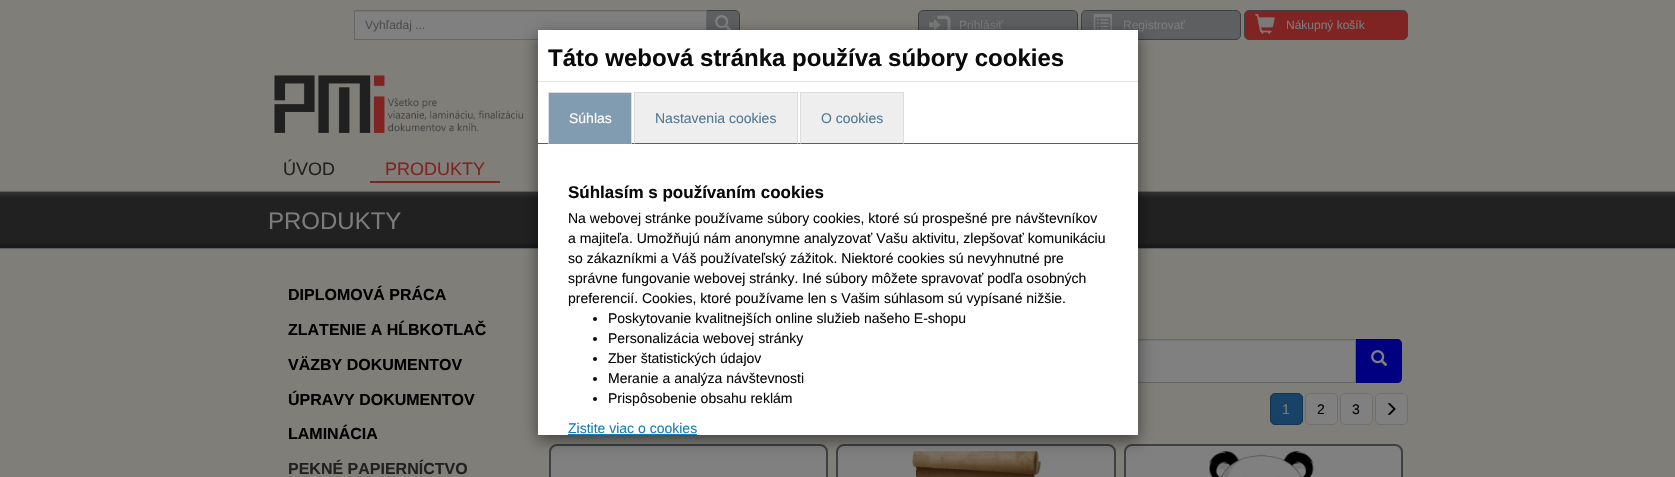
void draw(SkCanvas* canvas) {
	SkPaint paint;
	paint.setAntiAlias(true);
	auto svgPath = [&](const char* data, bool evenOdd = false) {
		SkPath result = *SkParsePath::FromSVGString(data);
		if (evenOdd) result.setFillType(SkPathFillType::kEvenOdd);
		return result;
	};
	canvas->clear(0xff807e78);
	paint.setColor(0xff808080);
	canvas->drawRect(SkRect::MakeXYWH(355, 12, 351, 27), paint);
	paint.setColor(0xff767676);
	canvas->drawRect(SkRect::MakeXYWH(355, 11, 351, 1), paint);
	paint.setColor(0xff5e5f60);
	canvas->drawPath(svgPath("M706.5 10.5H735C737.5 10.5 739.5 12.5 739.5 15V35C739.5 37.5 737.5 39.5 735 39.5H706.5Z"), paint);
	paint.setStroke(true);
	paint.setStrokeWidth(1);
	paint.setColor(0xff3f4041);
	canvas->drawPath(svgPath("M706.5 10.5H735C737.5 10.5 739.5 12.5 739.5 15V35C739.5 37.5 737.5 39.5 735 39.5H706.5Z"), paint);
	paint.setColor(0xff666666);
	canvas->drawRect(SkRect::MakeXYWH(354.5, 10.5, 352, 29), paint);
	SkFont f1(fontMgr->matchFamilyStyle("Liberation Sans", SkFontStyle::Normal()), 12);
	f1.setSubpixel(true);
	paint.setStroke(false);
	paint.setColor(0xff4d4d4d);
	canvas->drawString("Vyhľadaj ...", 365, 29, f1, paint);
	canvas->drawImageRect(SkImages::DeferredFromEncodedData(SkData::MakeFromFileName("img1.png")), SkRect::MakeXYWH(715, 15, 16, 15), SkSamplingOptions());
	paint.setColor(0xff5e5f60);
	canvas->drawRoundRect(SkRect::MakeXYWH(918.5, 10.5, 159, 29), 4.5, 4.5, paint);
	paint.setStroke(true);
	paint.setColor(0xff3f4041);
	canvas->drawRoundRect(SkRect::MakeXYWH(918.5, 10.5, 159, 29), 4.5, 4.5, paint);
	canvas->drawImageRect(SkImages::DeferredFromEncodedData(SkData::MakeFromFileName("img2.png")), SkRect::MakeXYWH(929, 15, 22, 15), SkSamplingOptions());
	paint.setStroke(false);
	paint.setColor(0xff7b7b7b);
	canvas->drawString("Prihlásiť", 959, 29, f1, paint);
	paint.setColor(0xff5e5f60);
	canvas->drawRoundRect(SkRect::MakeXYWH(1081.5, 10.5, 159, 29), 4.5, 4.5, paint);
	paint.setStroke(true);
	paint.setColor(0xff3f4041);
	canvas->drawRoundRect(SkRect::MakeXYWH(1081.5, 10.5, 159, 29), 4.5, 4.5, paint);
	canvas->drawImageRect(SkImages::DeferredFromEncodedData(SkData::MakeFromFileName("img3.png")), SkRect::MakeXYWH(1093, 14, 19, 16), SkSamplingOptions());
	paint.setStroke(false);
	paint.setColor(0xff7b7b7b);
	canvas->drawString("Registrovať", 1123, 29, f1, paint);
	paint.setColor(0xff802323);
	canvas->drawRoundRect(SkRect::MakeXYWH(1244.5, 10.5, 163, 29), 4.5, 4.5, paint);
	paint.setStroke(true);
	paint.setColor(0xff3f4041);
	canvas->drawRoundRect(SkRect::MakeXYWH(1244.5, 10.5, 163, 29), 4.5, 4.5, paint);
	canvas->drawImageRect(SkImages::DeferredFromEncodedData(SkData::MakeFromFileName("img4.png")), SkRect::MakeXYWH(1255, 14, 20, 20), SkSamplingOptions());
	paint.setStroke(false);
	paint.setColor(0xff7b7b7b);
	canvas->drawString("Nákupný košík", 1286, 29, f1, paint);
	canvas->drawImageRect(SkImages::DeferredFromEncodedData(SkData::MakeFromFileName("img5.png")), SkRect::MakeXYWH(274, 75, 250, 58), SkSamplingOptions());
	SkFont f2(fontMgr->matchFamilyStyle("Liberation Sans", SkFontStyle::Normal()), 18);
	f2.setSubpixel(true);
	paint.setColor(0xff212122);
	canvas->drawString("ÚVOD", 283, 175, f2, paint);
	paint.setColor(0xff802323);
	canvas->drawRect(SkRect::MakeXYWH(370, 181, 130, 2), paint);
	canvas->drawString("PRODUKTY", 385, 175, f2, paint);
	{
		const SkColor colors[] = {0xff303030, 0xff212122, 0xff212122, 0xff1a1a1a};
		const float stops[] = {0.02, 0.1, 0.9, 0.95};
		const SkPoint ends[] = {{838, 192}, {838, 248}};
		paint.setShader(SkGradientShader::MakeLinear(ends, colors, stops, 4, SkTileMode::kClamp));
		paint.setAlpha(255);
	}
	canvas->drawRect(SkRect::MakeXYWH(0, 192, 1675, 56), paint);
	paint.setShader(nullptr);
	paint.setColor(0xff5e5f60);
	canvas->drawRect(SkRect::MakeXYWH(0, 191, 1675, 1), paint);
	canvas->drawRect(SkRect::MakeXYWH(0, 248, 1675, 1), paint);
	SkFont f3(fontMgr->matchFamilyStyle("Liberation Sans", SkFontStyle::Normal()), 24);
	f3.setSubpixel(true);
	paint.setColor(0xff7b7b7b);
	canvas->drawString("PRODUKTY", 268, 229, f3, paint);
	SkFont f4(fontMgr->matchFamilyStyle("Liberation Sans", SkFontStyle::Bold()), 16);
	f4.setSubpixel(true);
	paint.setColor(0xff000000);
	canvas->drawString("DIPLOMOVÁ PRÁCA", 288, 300, f4, paint);
	canvas->drawString("ZLATENIE A HĹBKOTLAČ", 288, 335, f4, paint);
	canvas->drawString("VÄZBY DOKUMENTOV", 288, 370, f4, paint);
	canvas->drawString("ÚPRAVY DOKUMENTOV", 288, 405, f4, paint);
	canvas->drawString("LAMINÁCIA", 288, 439, f4, paint);
	paint.setColor(0xff212122);
	canvas->drawString("PEKNÉ PAPIERNÍCTVO", 288, 474, f4, paint);
	paint.setColor(0xff808080);
	canvas->drawRect(SkRect::MakeXYWH(1138, 341, 217, 41), paint);
	paint.setColor(0xff767676);
	canvas->drawPath(svgPath("M857 341H1355V340H857C854 340 853 342 853 345C853 343 855 341 857 341Z"), paint);
	paint.setStroke(true);
	paint.setColor(0xff666666);
	canvas->drawRect(SkRect::MakeXYWH(852.5, 339.5, 503, 43), paint);
	paint.setStroke(false);
	paint.setColor(0xff000080);
	canvas->drawPath(svgPath("M1356 339H1397C1400 339 1402 341 1402 344V378C1402 381 1400 383 1397 383H1356Z"), paint);
	canvas->drawImageRect(SkImages::DeferredFromEncodedData(SkData::MakeFromFileName("img6.png")), SkRect::MakeXYWH(1371, 350, 17, 17), SkSamplingOptions());
	paint.setColor(0xff184266);
	canvas->drawRoundRect(SkRect::MakeXYWH(1270.5, 393.5, 32, 31), 4.5, 4.5, paint);
	paint.setStroke(true);
	paint.setColor(0xff13354f);
	canvas->drawRoundRect(SkRect::MakeXYWH(1270.5, 393.5, 32, 31), 4.5, 4.5, paint);
	SkFont f5(fontMgr->matchFamilyStyle("Liberation Sans", SkFontStyle::Normal()), 14);
	f5.setSubpixel(true);
	paint.setStroke(false);
	paint.setColor(0xff7b7b7b);
	canvas->drawString("1", 1282, 414, f5, paint);
	paint.setColor(0xff808080);
	canvas->drawRoundRect(SkRect::MakeXYWH(1305.5, 393.5, 32, 31), 4.5, 4.5, paint);
	paint.setStroke(true);
	paint.setColor(0xff6f6f6f);
	canvas->drawRoundRect(SkRect::MakeXYWH(1305.5, 393.5, 32, 31), 4.5, 4.5, paint);
	paint.setStroke(false);
	paint.setColor(0xff000000);
	canvas->drawString("2", 1317, 414, f5, paint);
	paint.setColor(0xff808080);
	canvas->drawRoundRect(SkRect::MakeXYWH(1340.5, 393.5, 32, 31), 4.5, 4.5, paint);
	paint.setStroke(true);
	paint.setColor(0xff6f6f6f);
	canvas->drawRoundRect(SkRect::MakeXYWH(1340.5, 393.5, 32, 31), 4.5, 4.5, paint);
	paint.setStroke(false);
	paint.setColor(0xff000000);
	canvas->drawString("3", 1352, 414, f5, paint);
	paint.setColor(0xff808080);
	canvas->drawRoundRect(SkRect::MakeXYWH(1375.5, 393.5, 32, 31), 4.5, 4.5, paint);
	paint.setStroke(true);
	paint.setColor(0xff6f6f6f);
	canvas->drawRoundRect(SkRect::MakeXYWH(1375.5, 393.5, 32, 31), 4.5, 4.5, paint);
	canvas->drawImageRect(SkImages::DeferredFromEncodedData(SkData::MakeFromFileName("img7.png")), SkRect::MakeXYWH(1387, 403, 9, 12), SkSamplingOptions());
	paint.setStroke(false);
	paint.setColor(0xff808080);
	canvas->drawRoundRect(SkRect::MakeXYWH(550, 445, 277, 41), 7, 7, paint);
	paint.setStroke(true);
	paint.setStrokeWidth(2);
	paint.setColor(0xff3f4041);
	canvas->drawRoundRect(SkRect::MakeXYWH(550, 445, 277, 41), 7, 7, paint);
	paint.setStroke(false);
	paint.setColor(0xff808080);
	canvas->drawRoundRect(SkRect::MakeXYWH(837, 445, 278, 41), 7, 7, paint);
	paint.setStroke(true);
	paint.setColor(0xff3f4041);
	canvas->drawRoundRect(SkRect::MakeXYWH(837, 445, 278, 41), 7, 7, paint);
	canvas->drawImageRect(SkImages::DeferredFromEncodedData(SkData::MakeFromFileName("img8.png")), SkRect::MakeXYWH(912, 451, 129, 26), SkSamplingOptions());
	paint.setStroke(false);
	paint.setColor(0xff808080);
	canvas->drawRoundRect(SkRect::MakeXYWH(1125, 445, 277, 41), 7, 7, paint);
	paint.setStroke(true);
	paint.setColor(0xff3f4041);
	canvas->drawRoundRect(SkRect::MakeXYWH(1125, 445, 277, 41), 7, 7, paint);
	canvas->drawImageRect(SkImages::DeferredFromEncodedData(SkData::MakeFromFileName("img9.png")), SkRect::MakeXYWH(1209, 451, 105, 26), SkSamplingOptions());
	paint.setStroke(false);
	paint.setColor(0x80000000);
	paint.setMaskFilter(SkMaskFilter::MakeBlur(kNormal_SkBlurStyle, 7.5));
	canvas->drawRect(SkRect::MakeXYWH(538, 35, 600, 405), paint);
	paint.setMaskFilter(nullptr);
	paint.setColor(0xffffffff);
	canvas->drawRect(SkRect::MakeXYWH(538, 30, 600, 405), paint);
	paint.setColor(0xffe5e5e5);
	canvas->drawRect(SkRect::MakeXYWH(538, 81, 600, 1), paint);
	SkFont f6(fontMgr->matchFamilyStyle("Liberation Sans", SkFontStyle::Bold()), 24);
	f6.setSubpixel(true);
	paint.setColor(0xff0a0a0a);
	canvas->drawString("Táto webová stránka používa súbory cookies", 548, 66, f6, paint);
	paint.setColor(0xffe1223e);
	canvas->drawRect(SkRect::MakeXYWH(538, 143, 600, 1), paint);
	paint.setColor(0xff819cb1);
	canvas->drawRect(SkRect::MakeXYWH(548, 93, 84, 51), paint);
	paint.setColor(0xffdddddd);
	canvas->drawRect(SkRect::MakeXYWH(548, 92, 84, 1), paint);
	canvas->drawPath(svgPath("M632 92V144L631 143V93Z"), paint);
	canvas->drawPath(svgPath("M548 144V92L549 93V143Z"), paint);
	paint.setColor(0xffffffff);
	canvas->drawString("Súhlas", 569, 123, f5, paint);
	paint.setColor(0xffeeeeee);
	canvas->drawRect(SkRect::MakeXYWH(634, 92, 164, 52), paint);
	paint.setColor(0xffdcdcdc);
	canvas->drawPath(svgPath("M634 92H798L797 93H635Z"), paint);
	paint.setColor(0x12000000);
	canvas->drawPath(svgPath("M798 92V144L797 143V93Z"), paint);
	paint.setColor(0xffe1223e);
	canvas->drawPath(svgPath("M798 144H634L635 143H797Z"), paint);
	paint.setColor(0x12000000);
	canvas->drawPath(svgPath("M634 144V92L635 93V143Z"), paint);
	paint.setColor(0xff527895);
	canvas->drawString("Nastavenia cookies", 655, 123, f5, paint);
	paint.setColor(0xffeeeeee);
	canvas->drawRect(SkRect::MakeXYWH(800, 92, 104, 52), paint);
	paint.setColor(0xffdcdcdc);
	canvas->drawPath(svgPath("M800 92H904L903 93H801Z"), paint);
	paint.setColor(0x12000000);
	canvas->drawPath(svgPath("M904 92V144L903 143V93Z"), paint);
	paint.setColor(0xffe1223e);
	canvas->drawPath(svgPath("M904 144H800L801 143H903Z"), paint);
	paint.setColor(0x12000000);
	canvas->drawPath(svgPath("M800 144V92L801 93V143Z"), paint);
	paint.setColor(0xff527895);
	canvas->drawString("O cookies", 821, 123, f5, paint);
	SkFont f7(fontMgr->matchFamilyStyle("Liberation Sans", SkFontStyle::Bold()), 17);
	f7.setSubpixel(true);
	paint.setColor(0xff0a0a0a);
	canvas->drawString("Súhlasím s používaním cookies", 568, 198, f7, paint);
	canvas->drawString("Na webovej stránke používame súbory cookies, ktoré sú prospešné pre návštevníkov", 568, 223, f5, paint);
	canvas->drawString("a majiteľa. Umožňujú nám anonymne analyzovať Vašu aktivitu, zlepšovať komunikáciu", 568, 243, f5, paint);
	canvas->drawString("so zákazníkmi a Váš používateľský zážitok. Niektoré cookies sú nevyhnutné pre", 568, 263, f5, paint);
	canvas->drawString("správne fungovanie webovej stránky. Iné súbory môžete spravovať podľa osobných", 568, 283, f5, paint);
	canvas->drawString("preferencií. Cookies, ktoré používame len s Vašim súhlasom sú vypísané nižšie.", 568, 303, f5, paint);
	canvas->drawCircle(595, 319, 2, paint);
	canvas->drawString("Poskytovanie kvalitnejších online služieb našeho E-shopu", 608, 323, f5, paint);
	canvas->drawCircle(595, 339, 2, paint);
	canvas->drawString("Personalizácia webovej stránky", 608, 343, f5, paint);
	canvas->drawCircle(595, 359, 2, paint);
	canvas->drawString("Zber štatistických údajov", 608, 363, f5, paint);
	canvas->drawCircle(595, 379, 2, paint);
	canvas->drawString("Meranie a analýza návštevnosti", 608, 383, f5, paint);
	canvas->drawCircle(595, 399, 2, paint);
	canvas->drawString("Prispôsobenie obsahu reklám", 608, 403, f5, paint);
	paint.setColor(0xff187db7);
	canvas->drawString("Zistite viac o cookies", 568, 433, f5, paint);
	canvas->drawRect(SkRect::MakeXYWH(568, 434, 129, 1), paint);
}
